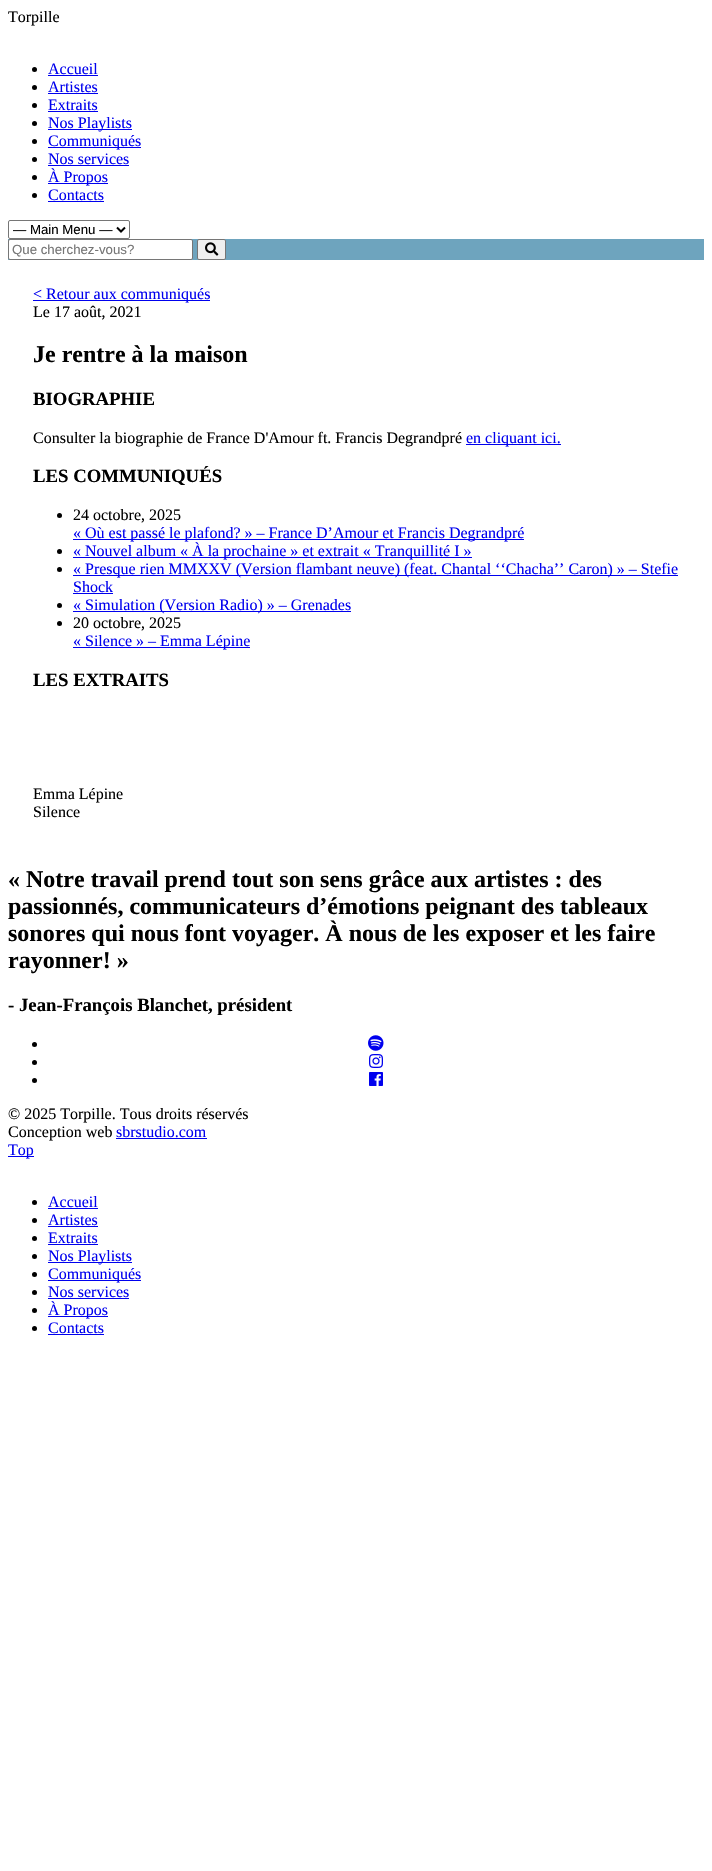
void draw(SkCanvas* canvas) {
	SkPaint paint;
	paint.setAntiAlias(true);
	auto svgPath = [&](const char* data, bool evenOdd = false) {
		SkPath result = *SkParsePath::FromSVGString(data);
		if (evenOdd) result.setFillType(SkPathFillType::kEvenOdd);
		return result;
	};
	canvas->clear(0xffffffff);
	SkFont f1(fontMgr->matchFamilyStyle("Liberation Serif", SkFontStyle::Normal()), 16);
	f1.setSubpixel(true);
	paint.setColor(0xff000000);
	canvas->drawString("Torpille", 8, 22, f1, paint);
	canvas->drawCircle(34.5, 69.5, 2.5, paint);
	paint.setColor(0xff0000ee);
	canvas->drawString("Accueil", 48, 74, f1, paint);
	canvas->drawRect(SkRect::MakeXYWH(48, 75, 50, 1), paint);
	paint.setColor(0xff000000);
	canvas->drawCircle(34.5, 87.5, 2.5, paint);
	paint.setColor(0xff0000ee);
	canvas->drawString("Artistes", 48, 92, f1, paint);
	canvas->drawRect(SkRect::MakeXYWH(48, 93, 50, 1), paint);
	paint.setColor(0xff000000);
	canvas->drawCircle(34.5, 105.5, 2.5, paint);
	paint.setColor(0xff0000ee);
	canvas->drawString("Extraits", 48, 110, f1, paint);
	canvas->drawRect(SkRect::MakeXYWH(48, 111, 50, 1), paint);
	paint.setColor(0xff000000);
	canvas->drawCircle(34.5, 123.5, 2.5, paint);
	paint.setColor(0xff0000ee);
	canvas->drawRect(SkRect::MakeXYWH(48, 129, 84, 1), paint);
	canvas->drawString("Nos Playlists", 48, 128, f1, paint);
	paint.setColor(0xff000000);
	canvas->drawCircle(34.5, 141.5, 2.5, paint);
	paint.setColor(0xff0000ee);
	canvas->drawRect(SkRect::MakeXYWH(48, 147, 93, 1), paint);
	canvas->drawString("Communiqués", 48, 146, f1, paint);
	paint.setColor(0xff000000);
	canvas->drawCircle(34.5, 159.5, 2.5, paint);
	paint.setColor(0xff0000ee);
	canvas->drawString("Nos services", 48, 164, f1, paint);
	canvas->drawRect(SkRect::MakeXYWH(48, 165, 81, 1), paint);
	paint.setColor(0xff000000);
	canvas->drawCircle(34.5, 177.5, 2.5, paint);
	paint.setColor(0xff0000ee);
	canvas->drawRect(SkRect::MakeXYWH(48, 183, 60, 1), paint);
	canvas->drawString("À Propos", 48, 182, f1, paint);
	paint.setColor(0xff000000);
	canvas->drawCircle(34.5, 195.5, 2.5, paint);
	paint.setColor(0xff0000ee);
	canvas->drawString("Contacts", 48, 200, f1, paint);
	canvas->drawRect(SkRect::MakeXYWH(48, 201, 56, 1), paint);
	paint.setStroke(true);
	paint.setStrokeWidth(1);
	paint.setColor(0xff767676);
	canvas->drawRoundRect(SkRect::MakeXYWH(8.5, 220.5, 121, 18), 1.5, 1.5, paint);
	paint.setStrokeWidth(2);
	paint.setColor(0xff000000);
	canvas->drawPath(svgPath("M117 227.5L121 231.5L125 227.5"), paint);
	SkFont f2(fontMgr->matchFamilyStyle("Liberation Sans", SkFontStyle::Normal()), 13.25);
	f2.setSubpixel(true);
	paint.setStroke(false);
	canvas->drawString("— Main Menu —", 13, 234, f2, paint);
	paint.setColor(0xff6ea4be);
	canvas->drawRect(SkRect::MakeXYWH(8, 239, 696, 21), paint);
	paint.setColor(0xffffffff);
	canvas->drawRoundRect(SkRect::MakeXYWH(8.5, 239.5, 184, 20), 1.5, 1.5, paint);
	paint.setStroke(true);
	paint.setStrokeWidth(1);
	paint.setColor(0xff767676);
	canvas->drawRoundRect(SkRect::MakeXYWH(8.5, 239.5, 184, 20), 1.5, 1.5, paint);
	paint.setStroke(false);
	paint.setColor(0xff757575);
	canvas->drawString("Que cherchez-vous?", 12, 254, f2, paint);
	paint.setColor(0xffefefef);
	canvas->drawRoundRect(SkRect::MakeXYWH(197.5, 239.5, 28, 20), 1.5, 1.5, paint);
	paint.setStroke(true);
	paint.setColor(0xff767676);
	canvas->drawRoundRect(SkRect::MakeXYWH(197.5, 239.5, 28, 20), 1.5, 1.5, paint);
	canvas->drawImageRect(SkImages::DeferredFromEncodedData(SkData::MakeFromFileName("img1.png")), SkRect::MakeXYWH(205, 242, 14, 14), SkSamplingOptions());
	paint.setStroke(false);
	paint.setColor(0xff0000ee);
	canvas->drawRect(SkRect::MakeXYWH(33, 300, 177, 1), paint);
	canvas->drawString("< Retour aux communiqués", 33, 299, f1, paint);
	paint.setColor(0xff000000);
	canvas->drawString("Le 17 août, 2021", 33, 317, f1, paint);
	SkFont f3(fontMgr->matchFamilyStyle("Liberation Serif", SkFontStyle::Bold()), 24);
	f3.setSubpixel(true);
	canvas->drawString("Je rentre à la maison", 33, 362, f3, paint);
	SkFont f4(fontMgr->matchFamilyStyle("Liberation Serif", SkFontStyle::Bold()), 18.75);
	f4.setSubpixel(true);
	canvas->drawString("BIOGRAPHIE", 33, 405, f4, paint);
	canvas->drawString("Consulter la biographie de France D'Amour ft. Francis Degrandpré", 33, 443, f1, paint);
	paint.setColor(0xff0000ee);
	canvas->drawRect(SkRect::MakeXYWH(466, 444, 95, 1), paint);
	canvas->drawString("en cliquant ici.", 466, 443, f1, paint);
	paint.setColor(0xff000000);
	canvas->drawString("LES COMMUNIQUÉS", 33, 482, f4, paint);
	canvas->drawCircle(59.5, 515.5, 2.5, paint);
	canvas->drawString("24 octobre, 2025", 73, 520, f1, paint);
	paint.setColor(0xff0000ee);
	canvas->drawRect(SkRect::MakeXYWH(73, 539, 451, 1), paint);
	canvas->drawString("« Où est passé le plafond? » – France D’Amour et Francis Degrandpré", 73, 538, f1, paint);
	paint.setColor(0xff000000);
	canvas->drawCircle(59.5, 551.5, 2.5, paint);
	paint.setColor(0xff0000ee);
	canvas->drawRect(SkRect::MakeXYWH(73, 557, 399, 1), paint);
	canvas->drawString("« Nouvel album « À la prochaine » et extrait « Tranquillité I »", 73, 556, f1, paint);
	paint.setColor(0xff000000);
	canvas->drawCircle(59.5, 569.5, 2.5, paint);
	paint.setColor(0xff0000ee);
	canvas->drawRect(SkRect::MakeXYWH(73, 575, 605, 1), paint);
	canvas->drawString("« Presque rien MMXXV (Version flambant neuve) (feat. Chantal ‘‘Chacha’’ Caron) » – Stefie", 73, 574, f1, paint);
	canvas->drawString("Shock", 73, 592, f1, paint);
	canvas->drawRect(SkRect::MakeXYWH(73, 593, 40, 1), paint);
	paint.setColor(0xff000000);
	canvas->drawCircle(59.5, 605.5, 2.5, paint);
	paint.setColor(0xff0000ee);
	canvas->drawRect(SkRect::MakeXYWH(73, 611, 278, 1), paint);
	canvas->drawString("« Simulation (Version Radio) » – Grenades", 73, 610, f1, paint);
	paint.setColor(0xff000000);
	canvas->drawCircle(59.5, 623.5, 2.5, paint);
	canvas->drawString("20 octobre, 2025", 73, 628, f1, paint);
	paint.setColor(0xff0000ee);
	canvas->drawRect(SkRect::MakeXYWH(73, 647, 177, 1), paint);
	canvas->drawString("« Silence » – Emma Lépine", 73, 646, f1, paint);
	paint.setColor(0xff000000);
	canvas->drawString("LES EXTRAITS", 33, 686, f4, paint);
	canvas->drawString("Emma Lépine", 33, 799, f1, paint);
	canvas->drawString("Silence", 33, 817, f1, paint);
	canvas->drawString("« Notre travail prend tout son sens grâce aux artistes : des", 8, 887, f3, paint);
	canvas->drawString("passionnés, communicateurs d’émotions peignant des tableaux", 8, 914, f3, paint);
	canvas->drawString("sonores qui nous font voyager. À nous de les exposer et les faire", 8, 941, f3, paint);
	canvas->drawString("rayonner! »", 8, 968, f3, paint);
	canvas->drawString("- Jean-François Blanchet, président", 8, 1011, f4, paint);
	canvas->drawCircle(34.5, 1044.5, 2.5, paint);
	canvas->drawImageRect(SkImages::DeferredFromEncodedData(SkData::MakeFromFileName("img2.png")), SkRect::MakeXYWH(368, 1035, 16, 16), SkSamplingOptions());
	canvas->drawCircle(34.5, 1062.5, 2.5, paint);
	canvas->drawImageRect(SkImages::DeferredFromEncodedData(SkData::MakeFromFileName("img3.png")), SkRect::MakeXYWH(369, 1054, 14, 14), SkSamplingOptions());
	canvas->drawCircle(34.5, 1080.5, 2.5, paint);
	canvas->drawImageRect(SkImages::DeferredFromEncodedData(SkData::MakeFromFileName("img4.png")), SkRect::MakeXYWH(369, 1072, 14, 14), SkSamplingOptions());
	canvas->drawString("© 2025 Torpille. Tous droits réservés", 8, 1119, f1, paint);
	canvas->drawString("Conception web", 8, 1137, f1, paint);
	paint.setColor(0xff0000ee);
	canvas->drawString("sbrstudio.com", 116, 1137, f1, paint);
	canvas->drawRect(SkRect::MakeXYWH(116, 1138, 91, 1), paint);
	canvas->drawRect(SkRect::MakeXYWH(8, 1156, 26, 1), paint);
	canvas->drawString("Top", 8, 1155, f1, paint);
	paint.setColor(0xff000000);
	canvas->drawCircle(34.5, 1202.5, 2.5, paint);
	paint.setColor(0xff0000ee);
	canvas->drawString("Accueil", 48, 1207, f1, paint);
	canvas->drawRect(SkRect::MakeXYWH(48, 1208, 50, 1), paint);
	paint.setColor(0xff000000);
	canvas->drawCircle(34.5, 1220.5, 2.5, paint);
	paint.setColor(0xff0000ee);
	canvas->drawString("Artistes", 48, 1225, f1, paint);
	canvas->drawRect(SkRect::MakeXYWH(48, 1226, 50, 1), paint);
	paint.setColor(0xff000000);
	canvas->drawCircle(34.5, 1238.5, 2.5, paint);
	paint.setColor(0xff0000ee);
	canvas->drawString("Extraits", 48, 1243, f1, paint);
	canvas->drawRect(SkRect::MakeXYWH(48, 1244, 50, 1), paint);
	paint.setColor(0xff000000);
	canvas->drawCircle(34.5, 1256.5, 2.5, paint);
	paint.setColor(0xff0000ee);
	canvas->drawRect(SkRect::MakeXYWH(48, 1262, 84, 1), paint);
	canvas->drawString("Nos Playlists", 48, 1261, f1, paint);
	paint.setColor(0xff000000);
	canvas->drawCircle(34.5, 1274.5, 2.5, paint);
	paint.setColor(0xff0000ee);
	canvas->drawRect(SkRect::MakeXYWH(48, 1280, 93, 1), paint);
	canvas->drawString("Communiqués", 48, 1279, f1, paint);
	paint.setColor(0xff000000);
	canvas->drawCircle(34.5, 1292.5, 2.5, paint);
	paint.setColor(0xff0000ee);
	canvas->drawString("Nos services", 48, 1297, f1, paint);
	canvas->drawRect(SkRect::MakeXYWH(48, 1298, 81, 1), paint);
	paint.setColor(0xff000000);
	canvas->drawCircle(34.5, 1310.5, 2.5, paint);
	paint.setColor(0xff0000ee);
	canvas->drawRect(SkRect::MakeXYWH(48, 1316, 60, 1), paint);
	canvas->drawString("À Propos", 48, 1315, f1, paint);
	paint.setColor(0xff000000);
	canvas->drawCircle(34.5, 1328.5, 2.5, paint);
	paint.setColor(0xff0000ee);
	canvas->drawString("Contacts", 48, 1333, f1, paint);
	canvas->drawRect(SkRect::MakeXYWH(48, 1334, 56, 1), paint);
}
